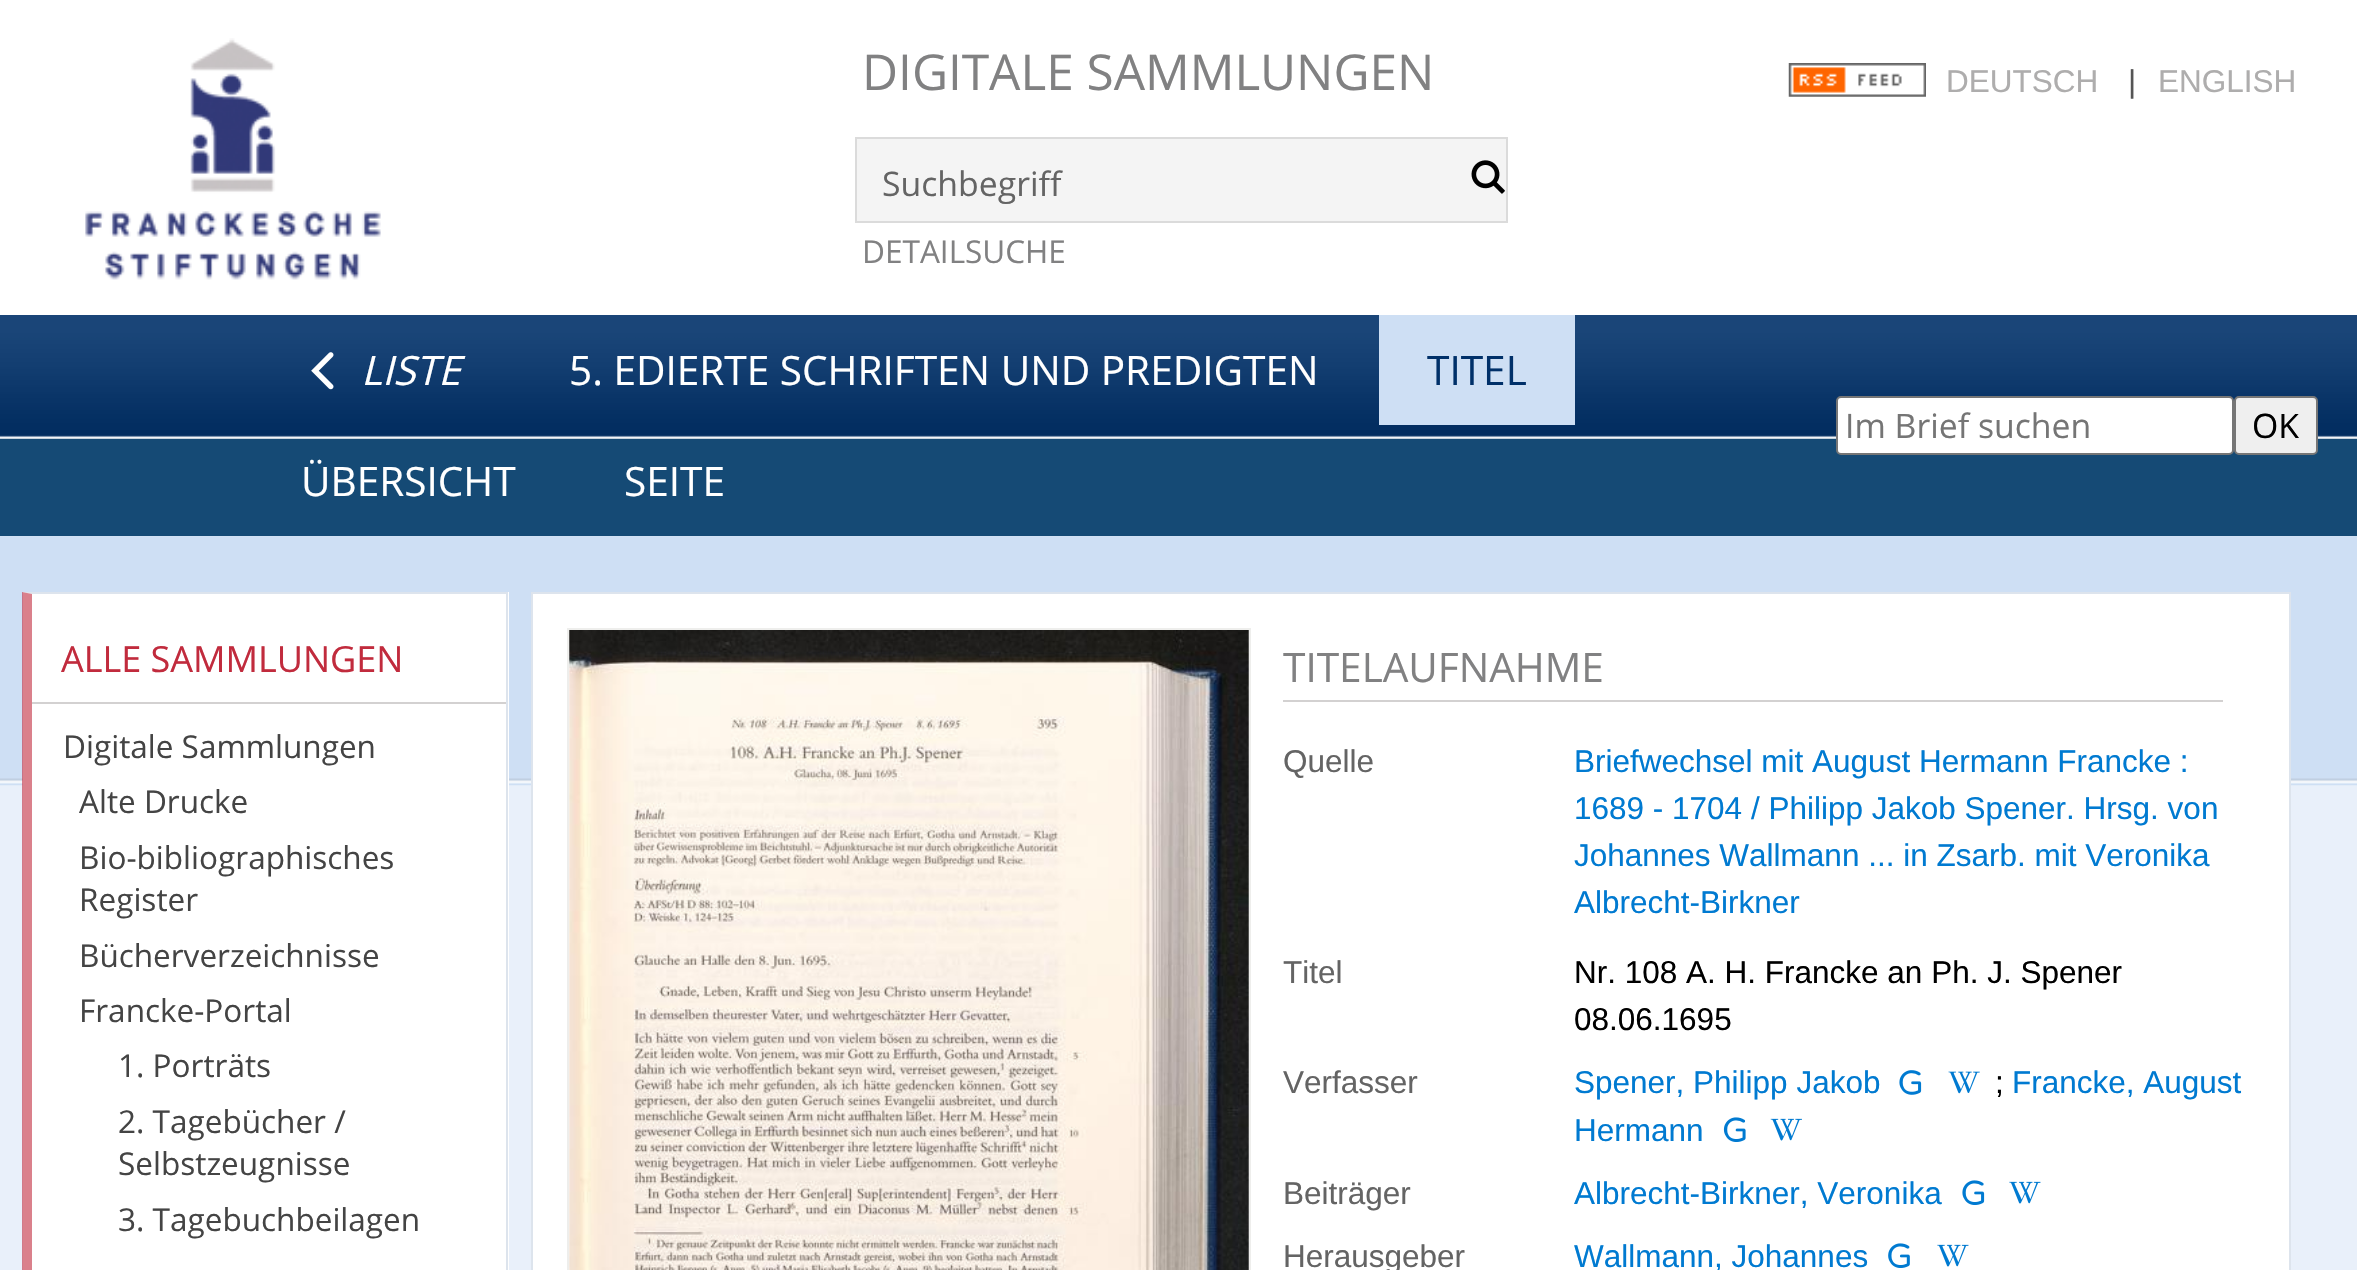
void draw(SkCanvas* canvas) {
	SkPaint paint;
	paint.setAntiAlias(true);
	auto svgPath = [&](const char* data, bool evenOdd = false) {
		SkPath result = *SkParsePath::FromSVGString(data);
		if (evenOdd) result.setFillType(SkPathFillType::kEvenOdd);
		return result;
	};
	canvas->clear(0xffffffff);
	canvas->drawImageRect(SkImages::DeferredFromEncodedData(SkData::MakeFromFileName("img1.png")), SkRect::MakeXYWH(85, 38, 296, 242), SkSamplingOptions());
	SkFont f1(fontMgr->matchFamilyStyle("Open Sans", SkFontStyle::Normal()), 49.5);
	f1.setSubpixel(true);
	paint.setColor(0xff818182);
	canvas->drawString("DIGITALE SAMMLUNGEN", 862, 90, f1, paint);
	canvas->drawImageRect(SkImages::DeferredFromEncodedData(SkData::MakeFromFileName("img2.png")), SkRect::MakeXYWH(1788, 63, 138, 34), SkSamplingOptions());
	SkFont f2(fontMgr->matchFamilyStyle("Liberation Sans", SkFontStyle::Normal()), 31.5);
	f2.setSubpixel(true);
	paint.setColor(0xffaeadad);
	canvas->drawString("DEUTSCH", 1946, 92, f2, paint);
	paint.setColor(0xff555555);
	canvas->drawString("|", 2128, 92, f2, paint);
	paint.setColor(0xffaeadad);
	canvas->drawString("ENGLISH", 2158, 92, f2, paint);
	paint.setColor(0xfff4f4f4);
	canvas->drawRect(SkRect::MakeXYWH(856, 138, 651, 84), paint);
	paint.setStroke(true);
	paint.setStrokeWidth(2);
	paint.setColor(0xffdbdbdb);
	canvas->drawRect(SkRect::MakeXYWH(856, 138, 651, 84), paint);
	SkFont f3(fontMgr->matchFamilyStyle("Open Sans", SkFontStyle::Normal()), 33.75);
	f3.setSubpixel(true);
	paint.setStroke(false);
	paint.setColor(0xff646464);
	canvas->drawString("Suchbegriff", 882, 196, f3, paint);
	canvas->drawImageRect(SkImages::DeferredFromEncodedData(SkData::MakeFromFileName("img3.png")), SkRect::MakeXYWH(1471, 160, 34, 34), SkSamplingOptions());
	SkFont f4(fontMgr->matchFamilyStyle("Open Sans", SkFontStyle::Normal()), 31.5);
	f4.setSubpixel(true);
	paint.setColor(0xff818182);
	canvas->drawString("DETAILSUCHE", 862, 263, f4, paint);
	paint.setColor(0xff154a75);
	canvas->drawRect(SkRect::MakeXYWH(0, 438, 2357, 98), paint);
	canvas->drawImageRect(SkImages::DeferredFromEncodedData(SkData::MakeFromFileName("img4.png")), SkRect::MakeXYWH(0, 315, 2357, 124), SkSamplingOptions());
	canvas->drawImageRect(SkImages::DeferredFromEncodedData(SkData::MakeFromFileName("img5.png")), SkRect::MakeXYWH(311, 352, 23, 38), SkSamplingOptions());
	SkFont f5(fontMgr->matchFamilyStyle("Open Sans", SkFontStyle::Italic()), 40.5);
	f5.setSubpixel(true);
	paint.setColor(0xffffffff);
	canvas->drawString("LISTE", 361, 385, f5, paint);
	SkFont f6(fontMgr->matchFamilyStyle("Open Sans", SkFontStyle::Normal()), 40.5);
	f6.setSubpixel(true);
	canvas->drawString("5. EDIERTE SCHRIFTEN UND PREDIGTEN", 569, 385, f6, paint);
	paint.setColor(0xffcedff4);
	canvas->drawRect(SkRect::MakeXYWH(1379, 315, 196, 110), paint);
	paint.setColor(0xff003069);
	canvas->drawString("TITEL", 1427, 385, f6, paint);
	paint.setColor(0xffffffff);
	canvas->drawString("ÜBERSICHT", 301, 496, f6, paint);
	canvas->drawString("SEITE", 624, 496, f6, paint);
	canvas->drawRoundRect(SkRect::MakeXYWH(1837, 397, 396, 57), 4, 4, paint);
	paint.setStroke(true);
	paint.setColor(0xff767676);
	canvas->drawRoundRect(SkRect::MakeXYWH(1837, 397, 396, 57), 4, 4, paint);
	paint.setStroke(false);
	paint.setColor(0xff757575);
	canvas->drawString("Im Brief suchen", 1845, 438, f3, paint);
	paint.setColor(0xffefefef);
	canvas->drawRoundRect(SkRect::MakeXYWH(2235, 397, 82, 57), 4, 4, paint);
	paint.setStroke(true);
	paint.setColor(0xff767676);
	canvas->drawRoundRect(SkRect::MakeXYWH(2235, 397, 82, 57), 4, 4, paint);
	paint.setStroke(false);
	paint.setColor(0xff000000);
	canvas->drawString("OK", 2252, 438, f3, paint);
	paint.setColor(0xffe9f0fa);
	canvas->drawRect(SkRect::MakeXYWH(0, 785, 2357, 485), paint);
	canvas->drawImageRect(SkImages::DeferredFromEncodedData(SkData::MakeFromFileName("img6.png")), SkRect::MakeXYWH(0, 536, 2357, 250), SkSamplingOptions());
	paint.setColor(0xffffffff);
	canvas->drawRect(SkRect::MakeXYWH(23, 592, 486, 678), paint);
	paint.setColor(0xffdde4ed);
	canvas->drawPath(svgPath("M22 592H508L506 594H32Z"), paint);
	canvas->drawRect(SkRect::MakeXYWH(506, 592, 2, 678), paint);
	paint.setColor(0x99c12b3d);
	canvas->drawPath(svgPath("M22 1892V592L32 594V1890Z"), paint);
	paint.setColor(0xffd3d1d1);
	canvas->drawRect(SkRect::MakeXYWH(32, 702, 474, 2), paint);
	SkFont f7(fontMgr->matchFamilyStyle("Open Sans", SkFontStyle::Normal()), 36);
	f7.setSubpixel(true);
	paint.setColor(0xffc12b3d);
	canvas->drawString("ALLE SAMMLUNGEN", 61, 672, f7, paint);
	paint.setColor(0xff444444);
	canvas->drawString("Digitale Sammlungen", 63, 758, f4, paint);
	canvas->drawString("Alte Drucke", 79, 813, f4, paint);
	canvas->drawString("Bio-bibliographisches", 79, 869, f4, paint);
	canvas->drawString("Register", 79, 911, f4, paint);
	canvas->drawString("Bücherverzeichnisse", 79, 967, f4, paint);
	canvas->drawString("Francke-Portal", 79, 1022, f4, paint);
	canvas->drawString("1. Porträts", 118, 1077, f4, paint);
	canvas->drawString("2. Tagebücher /", 118, 1133, f4, paint);
	canvas->drawString("Selbstzeugnisse", 118, 1175, f4, paint);
	canvas->drawString("3. Tagebuchbeilagen", 118, 1231, f4, paint);
	paint.setColor(0xffffffff);
	canvas->drawRect(SkRect::MakeXYWH(532, 593, 1758, 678), paint);
	paint.setStroke(true);
	paint.setColor(0xffdde4ed);
	canvas->drawRect(SkRect::MakeXYWH(532, 593, 1758, 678), paint);
	paint.setColor(0xffeeeeec);
	canvas->drawRect(SkRect::MakeXYWH(568, 629, 682, 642), paint);
	canvas->drawImageRect(SkImages::DeferredFromEncodedData(SkData::MakeFromFileName("img7.png")), SkRect::MakeXYWH(569, 630, 680, 640), SkSamplingOptions());
	paint.setStroke(false);
	paint.setColor(0xffd3d1d1);
	canvas->drawRect(SkRect::MakeXYWH(1283, 700, 940, 2), paint);
	paint.setColor(0xff818182);
	canvas->drawString("TITELAUFNAHME", 1283, 682, f6, paint);
	paint.setColor(0xff646464);
	canvas->drawString("Quelle", 1283, 772, f2, paint);
	paint.setColor(0xff007ad1);
	canvas->drawString("Briefwechsel mit August Hermann Francke :", 1574, 772, f2, paint);
	canvas->drawString("1689 - 1704 / Philipp Jakob Spener. Hrsg. von", 1574, 819, f2, paint);
	canvas->drawString("Johannes Wallmann ... in Zsarb. mit Veronika", 1574, 866, f2, paint);
	canvas->drawString("Albrecht-Birkner", 1574, 913, f2, paint);
	paint.setColor(0xff646464);
	canvas->drawString("Titel", 1283, 983, f2, paint);
	paint.setColor(0xff000000);
	canvas->drawString("Nr. 108 A. H. Francke an Ph. J. Spener", 1574, 983, f2, paint);
	canvas->drawString("08.06.1695", 1574, 1030, f2, paint);
	paint.setColor(0xff646464);
	canvas->drawString("Verfasser", 1283, 1093, f2, paint);
	paint.setColor(0xff007ad1);
	canvas->drawString("Spener, Philipp Jakob", 1574, 1093, f2, paint);
	canvas->drawImageRect(SkImages::DeferredFromEncodedData(SkData::MakeFromFileName("img8.png")), SkRect::MakeXYWH(1899, 1070, 23, 25), SkSamplingOptions());
	canvas->drawImageRect(SkImages::DeferredFromEncodedData(SkData::MakeFromFileName("img9.png")), SkRect::MakeXYWH(1948, 1071, 32, 23), SkSamplingOptions());
	paint.setColor(0xff000000);
	canvas->drawString(";", 1995, 1093, f2, paint);
	paint.setColor(0xff007ad1);
	canvas->drawString("Francke, August", 2012, 1093, f2, paint);
	canvas->drawString("Hermann", 1574, 1141, f2, paint);
	canvas->drawImageRect(SkImages::DeferredFromEncodedData(SkData::MakeFromFileName("img10.png")), SkRect::MakeXYWH(1723, 1117, 23, 25), SkSamplingOptions());
	canvas->drawImageRect(SkImages::DeferredFromEncodedData(SkData::MakeFromFileName("img11.png")), SkRect::MakeXYWH(1770, 1118, 32, 23), SkSamplingOptions());
	paint.setColor(0xff646464);
	canvas->drawString("Beiträger", 1283, 1204, f2, paint);
	paint.setColor(0xff007ad1);
	canvas->drawString("Albrecht-Birkner, Veronika", 1574, 1204, f2, paint);
	canvas->drawImageRect(SkImages::DeferredFromEncodedData(SkData::MakeFromFileName("img12.png")), SkRect::MakeXYWH(1962, 1180, 23, 25), SkSamplingOptions());
	canvas->drawImageRect(SkImages::DeferredFromEncodedData(SkData::MakeFromFileName("img13.png")), SkRect::MakeXYWH(2009, 1181, 32, 23), SkSamplingOptions());
	paint.setColor(0xff646464);
	canvas->drawString("Herausgeber", 1283, 1267, f2, paint);
	paint.setColor(0xff007ad1);
	canvas->drawString("Wallmann, Johannes", 1574, 1267, f2, paint);
	canvas->drawImageRect(SkImages::DeferredFromEncodedData(SkData::MakeFromFileName("img14.png")), SkRect::MakeXYWH(1888, 1243, 22, 25), SkSamplingOptions());
	canvas->drawImageRect(SkImages::DeferredFromEncodedData(SkData::MakeFromFileName("img13.png")), SkRect::MakeXYWH(1937, 1244, 32, 23), SkSamplingOptions());
}
